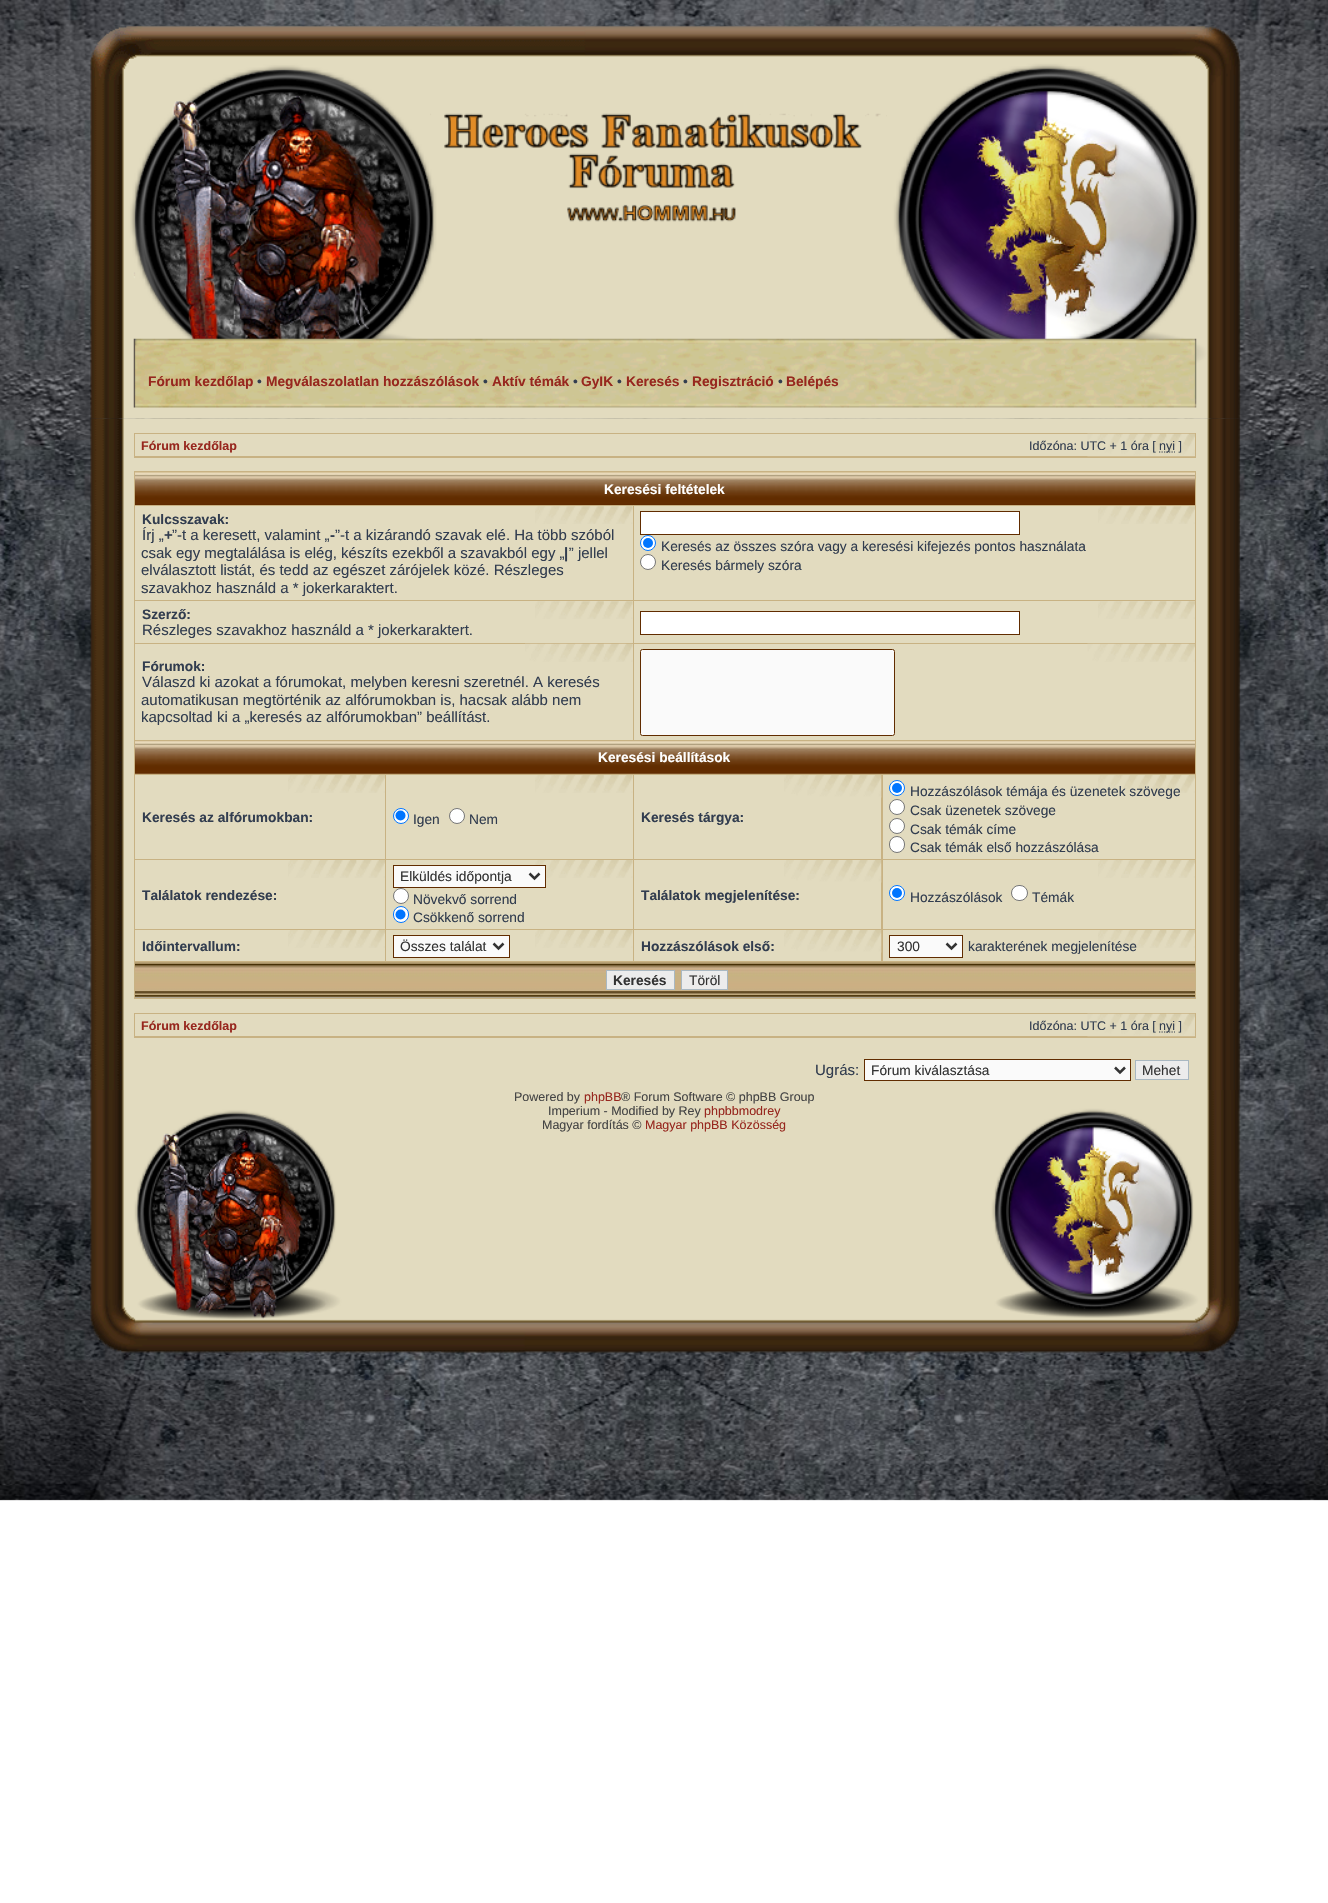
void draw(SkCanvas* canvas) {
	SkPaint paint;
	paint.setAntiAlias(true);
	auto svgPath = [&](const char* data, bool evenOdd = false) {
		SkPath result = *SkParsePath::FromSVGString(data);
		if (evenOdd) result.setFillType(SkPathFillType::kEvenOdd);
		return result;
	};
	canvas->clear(0xffffffff);
	canvas->drawImageRect(SkImages::DeferredFromEncodedData(SkData::MakeFromFileName("img1.png")), SkRect::MakeXYWH(0, 0, 1328, 1501), SkSamplingOptions());
	canvas->drawImageRect(SkImages::DeferredFromEncodedData(SkData::MakeFromFileName("img2.png")), SkRect::MakeXYWH(90, 25, 1151, 394), SkSamplingOptions());
	canvas->drawImageRect(SkImages::DeferredFromEncodedData(SkData::MakeFromFileName("img3.png")), SkRect::MakeXYWH(430, 113, 457, 109), SkSamplingOptions());
	canvas->drawImageRect(SkImages::DeferredFromEncodedData(SkData::MakeFromFileName("img4.png")), SkRect::MakeXYWH(133, 338, 1064, 70), SkSamplingOptions());
	SkFont f1(fontMgr->matchFamilyStyle("Liberation Sans", SkFontStyle::Bold()), 13.75);
	f1.setSubpixel(true);
	paint.setColor(0xff97271e);
	canvas->drawString("Fórum kezdőlap", 148, 386, f1, paint);
	SkFont f2(fontMgr->matchFamilyStyle("Liberation Sans", SkFontStyle::Normal()), 13.75);
	f2.setSubpixel(true);
	paint.setColor(0xff323d4f);
	canvas->drawString("•", 257, 386, f2, paint);
	paint.setColor(0xff97271e);
	canvas->drawString("Megválaszolatlan hozzászólások", 266, 386, f1, paint);
	paint.setColor(0xff323d4f);
	canvas->drawString("•", 483, 386, f2, paint);
	paint.setColor(0xff97271e);
	canvas->drawString("Aktív témák", 492, 386, f1, paint);
	paint.setColor(0xff323d4f);
	canvas->drawString("•", 573, 386, f2, paint);
	paint.setColor(0xff97271e);
	canvas->drawString("GyIK", 581, 386, f1, paint);
	paint.setColor(0xff323d4f);
	canvas->drawString("•", 617, 386, f2, paint);
	paint.setColor(0xff97271e);
	canvas->drawString("Keresés", 626, 386, f1, paint);
	paint.setColor(0xff323d4f);
	canvas->drawString("•", 683, 386, f2, paint);
	paint.setColor(0xff97271e);
	canvas->drawString("Regisztráció", 692, 386, f1, paint);
	paint.setColor(0xff323d4f);
	canvas->drawString("•", 778, 386, f2, paint);
	paint.setColor(0xff97271e);
	canvas->drawString("Belépés", 786, 386, f1, paint);
	canvas->drawImageRect(SkImages::DeferredFromEncodedData(SkData::MakeFromFileName("img5.png")), SkRect::MakeXYWH(90, 418, 1151, 672), SkSamplingOptions());
	paint.setColor(0xffc8b283);
	canvas->drawRect(SkRect::MakeXYWH(134, 433, 1062, 25), paint);
	paint.setColor(0xffe2dbbf);
	canvas->drawRect(SkRect::MakeXYWH(135, 434, 953, 22), paint);
	canvas->drawImageRect(SkImages::DeferredFromEncodedData(SkData::MakeFromFileName("img6.png")), SkRect::MakeXYWH(1087, 433, 108, 24), SkSamplingOptions());
	SkFont f3(fontMgr->matchFamilyStyle("Liberation Sans", SkFontStyle::Bold()), 12.5);
	f3.setSubpixel(true);
	paint.setColor(0xff97271e);
	canvas->drawString("Fórum kezdőlap", 141, 450, f3, paint);
	SkFont f4(fontMgr->matchFamilyStyle("Liberation Sans", SkFontStyle::Normal()), 12.5);
	f4.setSubpixel(true);
	paint.setColor(0xff323d4f);
	canvas->drawString("Időzóna: UTC + 1 óra [", 1029, 450, f4, paint);
	paint.setStroke(true);
	paint.setStrokeWidth(1.2);
	paint.setPathEffect(SkDashPathEffect::Make({{1.25f, 1.25f}}, 0));
	canvas->drawPath(svgPath("M1159 452H1175"), paint);
	paint.setPathEffect(nullptr);
	paint.setStroke(false);
	canvas->drawString("nyi ]", 1159, 450, f4, paint);
	paint.setColor(0xffc8b283);
	canvas->drawRect(SkRect::MakeXYWH(134, 471, 1062, 528), paint);
	canvas->drawImageRect(SkImages::DeferredFromEncodedData(SkData::MakeFromFileName("img7.png")), SkRect::MakeXYWH(135, 472, 1060, 33), SkSamplingOptions());
	paint.setColor(0xffffffff);
	canvas->drawString("Keresési feltételek", 604, 494, f1, paint);
	paint.setColor(0xffe2dbbf);
	canvas->drawRect(SkRect::MakeXYWH(135, 506, 498, 94), paint);
	canvas->drawImageRect(SkImages::DeferredFromEncodedData(SkData::MakeFromFileName("img8.png")), SkRect::MakeXYWH(535, 506, 98, 18), SkSamplingOptions());
	paint.setColor(0xff323d4f);
	canvas->drawString("Kulcsszavak:", 142, 524, f1, paint);
	SkFont f5(fontMgr->matchFamilyStyle("Liberation Sans", SkFontStyle::Normal()), 15);
	f5.setSubpixel(true);
	canvas->drawString("Írj „", 142, 540, f5, paint);
	SkFont f6(fontMgr->matchFamilyStyle("Liberation Sans", SkFontStyle::Bold()), 15);
	f6.setSubpixel(true);
	canvas->drawString("+", 164, 540, f6, paint);
	canvas->drawString("”-t a keresett, valamint „", 172, 540, f5, paint);
	canvas->drawString("-", 330, 540, f6, paint);
	canvas->drawString("”-t a kizárandó szavak elé. Ha több szóból", 335, 540, f5, paint);
	canvas->drawString("csak egy megtalálása is elég, készíts ezekből a szavakból egy „ ” jellel", 141, 558, f5, paint);
	canvas->drawString("|", 564, 558, f6, paint);
	canvas->drawString("elválasztott listát, és tedd az egészet zárójelek közé. Részleges", 141, 575, f5, paint);
	canvas->drawString("szavakhoz használd a * jokerkaraktert.", 141, 593, f5, paint);
	paint.setColor(0xffe2dbbf);
	canvas->drawRect(SkRect::MakeXYWH(634, 506, 561, 94), paint);
	canvas->drawImageRect(SkImages::DeferredFromEncodedData(SkData::MakeFromFileName("img9.png")), SkRect::MakeXYWH(1098, 506, 97, 18), SkSamplingOptions());
	paint.setColor(0xffffffff);
	canvas->drawRect(SkRect::MakeXYWH(640.5, 511.5, 379, 23), paint);
	paint.setStroke(true);
	paint.setStrokeWidth(1);
	paint.setColor(0xff612c00);
	canvas->drawRect(SkRect::MakeXYWH(640.5, 511.5, 379, 23), paint);
	paint.setStroke(false);
	paint.setColor(0xffffffff);
	canvas->drawCircle(648, 543, 7.5, paint);
	paint.setStroke(true);
	paint.setColor(0xff0075ff);
	canvas->drawCircle(648, 543, 7.5, paint);
	paint.setStroke(false);
	canvas->drawCircle(648, 543, 5, paint);
	paint.setColor(0xff323d4f);
	canvas->drawString("Keresés az összes szóra vagy a keresési kifejezés pontos használata", 661, 551, f2, paint);
	paint.setColor(0xffffffff);
	canvas->drawCircle(648, 562, 7.5, paint);
	paint.setStroke(true);
	paint.setColor(0xff767676);
	canvas->drawCircle(648, 562, 7.5, paint);
	paint.setStroke(false);
	paint.setColor(0xff323d4f);
	canvas->drawString("Keresés bármely szóra", 661, 570, f2, paint);
	paint.setColor(0xffe2dbbf);
	canvas->drawRect(SkRect::MakeXYWH(135, 601, 498, 42), paint);
	canvas->drawImageRect(SkImages::DeferredFromEncodedData(SkData::MakeFromFileName("img8.png")), SkRect::MakeXYWH(535, 601, 98, 18), SkSamplingOptions());
	paint.setColor(0xff323d4f);
	canvas->drawString("Szerző:", 142, 619, f1, paint);
	canvas->drawString("Részleges szavakhoz használd a * jokerkaraktert.", 142, 635, f5, paint);
	paint.setColor(0xffe2dbbf);
	canvas->drawRect(SkRect::MakeXYWH(634, 601, 561, 42), paint);
	canvas->drawImageRect(SkImages::DeferredFromEncodedData(SkData::MakeFromFileName("img9.png")), SkRect::MakeXYWH(1098, 601, 97, 18), SkSamplingOptions());
	paint.setColor(0xffffffff);
	canvas->drawRect(SkRect::MakeXYWH(640.5, 611.5, 379, 23), paint);
	paint.setStroke(true);
	paint.setColor(0xff612c00);
	canvas->drawRect(SkRect::MakeXYWH(640.5, 611.5, 379, 23), paint);
	paint.setStroke(false);
	paint.setColor(0xffe2dbbf);
	canvas->drawRect(SkRect::MakeXYWH(135, 644, 498, 96), paint);
	canvas->drawImageRect(SkImages::DeferredFromEncodedData(SkData::MakeFromFileName("img10.png")), SkRect::MakeXYWH(525, 643, 108, 19), SkSamplingOptions());
	paint.setColor(0xff323d4f);
	canvas->drawString("Fórumok:", 142, 671, f1, paint);
	canvas->drawString("Válaszd ki azokat a fórumokat, melyben keresni szeretnél. A keresés", 142, 687, f5, paint);
	canvas->drawString("automatikusan megtörténik az alfórumokban is, hacsak alább nem", 141, 705, f5, paint);
	canvas->drawString("kapcsoltad ki a „keresés az alfórumokban” beállítást.", 141, 722, f5, paint);
	paint.setColor(0xffe2dbbf);
	canvas->drawRect(SkRect::MakeXYWH(634, 644, 561, 96), paint);
	canvas->drawImageRect(SkImages::DeferredFromEncodedData(SkData::MakeFromFileName("img11.png")), SkRect::MakeXYWH(1087, 643, 108, 19), SkSamplingOptions());
	paint.setColor(0xfffafafa);
	canvas->drawRoundRect(SkRect::MakeXYWH(640.5, 649.5, 254, 86), 2, 2, paint);
	paint.setStroke(true);
	paint.setColor(0xff612c00);
	canvas->drawRoundRect(SkRect::MakeXYWH(640.5, 649.5, 254, 86), 2, 2, paint);
	canvas->drawImageRect(SkImages::DeferredFromEncodedData(SkData::MakeFromFileName("img12.png")), SkRect::MakeXYWH(135, 741, 1060, 33), SkSamplingOptions());
	paint.setStroke(false);
	paint.setColor(0xffffffff);
	canvas->drawString("Keresési beállítások", 598, 762, f1, paint);
	paint.setColor(0xffe2dbbf);
	canvas->drawRect(SkRect::MakeXYWH(135, 775, 250, 84), paint);
	canvas->drawImageRect(SkImages::DeferredFromEncodedData(SkData::MakeFromFileName("img13.png")), SkRect::MakeXYWH(288, 775, 97, 18), SkSamplingOptions());
	paint.setColor(0xff323d4f);
	canvas->drawString("Keresés az alfórumokban:", 142, 822, f1, paint);
	paint.setColor(0xffe2dbbf);
	canvas->drawRect(SkRect::MakeXYWH(386, 775, 247, 84), paint);
	canvas->drawImageRect(SkImages::DeferredFromEncodedData(SkData::MakeFromFileName("img14.png")), SkRect::MakeXYWH(535, 775, 98, 18), SkSamplingOptions());
	paint.setColor(0xffffffff);
	canvas->drawCircle(401, 816, 7.5, paint);
	paint.setStroke(true);
	paint.setColor(0xff0075ff);
	canvas->drawCircle(401, 816, 7.5, paint);
	paint.setStroke(false);
	canvas->drawCircle(400.5, 815.5, 5, paint);
	paint.setColor(0xff323d4f);
	canvas->drawString("Igen", 413, 824, f2, paint);
	paint.setColor(0xffffffff);
	canvas->drawCircle(457, 816, 7.5, paint);
	paint.setStroke(true);
	paint.setColor(0xff767676);
	canvas->drawCircle(457, 816, 7.5, paint);
	paint.setStroke(false);
	paint.setColor(0xff323d4f);
	canvas->drawString("Nem", 469, 824, f2, paint);
	paint.setColor(0xffe2dbbf);
	canvas->drawRect(SkRect::MakeXYWH(634, 775, 247, 84), paint);
	canvas->drawImageRect(SkImages::DeferredFromEncodedData(SkData::MakeFromFileName("img15.png")), SkRect::MakeXYWH(784, 775, 98, 23), SkSamplingOptions());
	paint.setColor(0xff323d4f);
	canvas->drawString("Keresés tárgya:", 641, 822, f1, paint);
	paint.setColor(0xffe2dbbf);
	canvas->drawRect(SkRect::MakeXYWH(883, 775, 312, 84), paint);
	canvas->drawImageRect(SkImages::DeferredFromEncodedData(SkData::MakeFromFileName("img13.png")), SkRect::MakeXYWH(1098, 775, 97, 18), SkSamplingOptions());
	paint.setColor(0xffffffff);
	canvas->drawCircle(897, 788, 7.5, paint);
	paint.setStroke(true);
	paint.setColor(0xff0075ff);
	canvas->drawCircle(897, 788, 7.5, paint);
	paint.setStroke(false);
	canvas->drawCircle(897, 788, 5, paint);
	paint.setColor(0xff323d4f);
	canvas->drawString("Hozzászólások témája és üzenetek szövege", 910, 796, f2, paint);
	paint.setColor(0xffffffff);
	canvas->drawCircle(897, 807, 7.5, paint);
	paint.setStroke(true);
	paint.setColor(0xff767676);
	canvas->drawCircle(897, 807, 7.5, paint);
	paint.setStroke(false);
	paint.setColor(0xff323d4f);
	canvas->drawString("Csak üzenetek szövege", 910, 815, f2, paint);
	paint.setColor(0xffffffff);
	canvas->drawCircle(897, 826, 7.5, paint);
	paint.setStroke(true);
	paint.setColor(0xff767676);
	canvas->drawCircle(897, 826, 7.5, paint);
	paint.setStroke(false);
	paint.setColor(0xff323d4f);
	canvas->drawString("Csak témák címe", 910, 834, f2, paint);
	paint.setColor(0xffffffff);
	canvas->drawRoundRect(SkRect::MakeXYWH(889.5, 836.5, 15, 16), 7.5, 7.5, paint);
	paint.setStroke(true);
	paint.setColor(0xff767676);
	canvas->drawRoundRect(SkRect::MakeXYWH(889.5, 836.5, 15, 16), 7.5, 7.5, paint);
	paint.setStroke(false);
	paint.setColor(0xff323d4f);
	canvas->drawString("Csak témák első hozzászólása", 910, 852, f2, paint);
	paint.setColor(0xffe2dbbf);
	canvas->drawRect(SkRect::MakeXYWH(135, 860, 250, 69), paint);
	canvas->drawImageRect(SkImages::DeferredFromEncodedData(SkData::MakeFromFileName("img16.png")), SkRect::MakeXYWH(288, 860, 97, 18), SkSamplingOptions());
	paint.setColor(0xff323d4f);
	canvas->drawString("Találatok rendezése:", 142, 900, f1, paint);
	paint.setColor(0xffe2dbbf);
	canvas->drawRect(SkRect::MakeXYWH(386, 860, 247, 69), paint);
	canvas->drawImageRect(SkImages::DeferredFromEncodedData(SkData::MakeFromFileName("img17.png")), SkRect::MakeXYWH(535, 860, 98, 18), SkSamplingOptions());
	paint.setColor(0xfffafafa);
	canvas->drawRect(SkRect::MakeXYWH(393.5, 865.5, 152, 22), paint);
	paint.setStroke(true);
	paint.setColor(0xff612c00);
	canvas->drawRect(SkRect::MakeXYWH(393.5, 865.5, 152, 22), paint);
	paint.setStrokeWidth(2.5);
	paint.setColor(0xff333333);
	canvas->drawPath(svgPath("M529.5 873.5L534.5 878.5L539.5 873.5"), paint);
	paint.setStroke(false);
	canvas->drawString("Elküldés időpontja", 400, 881, f2, paint);
	paint.setColor(0xffffffff);
	canvas->drawCircle(401, 896, 7.5, paint);
	paint.setStroke(true);
	paint.setStrokeWidth(1);
	paint.setColor(0xff767676);
	canvas->drawCircle(401, 896, 7.5, paint);
	paint.setStroke(false);
	paint.setColor(0xff323d4f);
	canvas->drawString("Növekvő sorrend", 413, 904, f2, paint);
	paint.setColor(0xffffffff);
	canvas->drawRoundRect(SkRect::MakeXYWH(393.5, 906.5, 15, 16), 7.5, 7.5, paint);
	paint.setStroke(true);
	paint.setColor(0xff0075ff);
	canvas->drawRoundRect(SkRect::MakeXYWH(393.5, 906.5, 15, 16), 7.5, 7.5, paint);
	paint.setStroke(false);
	canvas->drawCircle(400.5, 914.5, 5, paint);
	paint.setColor(0xff323d4f);
	canvas->drawString("Csökkenő sorrend", 413, 922, f2, paint);
	paint.setColor(0xffe2dbbf);
	canvas->drawRect(SkRect::MakeXYWH(634, 860, 247, 69), paint);
	canvas->drawImageRect(SkImages::DeferredFromEncodedData(SkData::MakeFromFileName("img18.png")), SkRect::MakeXYWH(784, 860, 98, 23), SkSamplingOptions());
	paint.setColor(0xff323d4f);
	canvas->drawString("Találatok megjelenítése:", 641, 900, f1, paint);
	paint.setColor(0xffe2dbbf);
	canvas->drawRect(SkRect::MakeXYWH(883, 860, 312, 69), paint);
	canvas->drawImageRect(SkImages::DeferredFromEncodedData(SkData::MakeFromFileName("img16.png")), SkRect::MakeXYWH(1098, 860, 97, 18), SkSamplingOptions());
	paint.setColor(0xffffffff);
	canvas->drawCircle(897, 893, 7.5, paint);
	paint.setStroke(true);
	paint.setColor(0xff0075ff);
	canvas->drawCircle(897, 893, 7.5, paint);
	paint.setStroke(false);
	canvas->drawCircle(897, 893, 5, paint);
	paint.setColor(0xff323d4f);
	canvas->drawString("Hozzászólások", 910, 902, f2, paint);
	paint.setColor(0xffffffff);
	canvas->drawRoundRect(SkRect::MakeXYWH(1011.5, 885.5, 16, 15), 7.5, 7.5, paint);
	paint.setStroke(true);
	paint.setColor(0xff767676);
	canvas->drawRoundRect(SkRect::MakeXYWH(1011.5, 885.5, 16, 15), 7.5, 7.5, paint);
	paint.setStroke(false);
	paint.setColor(0xff323d4f);
	canvas->drawString("Témák", 1032, 902, f2, paint);
	paint.setColor(0xffe2dbbf);
	canvas->drawRect(SkRect::MakeXYWH(135, 930, 250, 31), paint);
	canvas->drawImageRect(SkImages::DeferredFromEncodedData(SkData::MakeFromFileName("img16.png")), SkRect::MakeXYWH(288, 930, 97, 18), SkSamplingOptions());
	paint.setColor(0xff323d4f);
	canvas->drawString("Időintervallum:", 142, 951, f1, paint);
	paint.setColor(0xffe2dbbf);
	canvas->drawRect(SkRect::MakeXYWH(386, 930, 247, 31), paint);
	canvas->drawImageRect(SkImages::DeferredFromEncodedData(SkData::MakeFromFileName("img17.png")), SkRect::MakeXYWH(535, 930, 98, 18), SkSamplingOptions());
	paint.setColor(0xfffafafa);
	canvas->drawRect(SkRect::MakeXYWH(393.5, 935.5, 116, 22), paint);
	paint.setStroke(true);
	paint.setColor(0xff612c00);
	canvas->drawRect(SkRect::MakeXYWH(393.5, 935.5, 116, 22), paint);
	paint.setStrokeWidth(2.5);
	paint.setColor(0xff333333);
	canvas->drawPath(svgPath("M493.5 943.5L498.5 948.5L503.5 943.5"), paint);
	paint.setStroke(false);
	canvas->drawString("Összes találat", 400, 951, f2, paint);
	paint.setColor(0xffe2dbbf);
	canvas->drawRect(SkRect::MakeXYWH(634, 930, 247, 31), paint);
	canvas->drawImageRect(SkImages::DeferredFromEncodedData(SkData::MakeFromFileName("img18.png")), SkRect::MakeXYWH(784, 930, 98, 23), SkSamplingOptions());
	paint.setColor(0xff323d4f);
	canvas->drawString("Hozzászólások első:", 641, 951, f1, paint);
	paint.setColor(0xffe2dbbf);
	canvas->drawRect(SkRect::MakeXYWH(883, 930, 312, 31), paint);
	canvas->drawImageRect(SkImages::DeferredFromEncodedData(SkData::MakeFromFileName("img16.png")), SkRect::MakeXYWH(1098, 930, 97, 18), SkSamplingOptions());
	paint.setColor(0xfffafafa);
	canvas->drawRect(SkRect::MakeXYWH(889.5, 935.5, 73, 22), paint);
	paint.setStroke(true);
	paint.setStrokeWidth(1);
	paint.setColor(0xff612c00);
	canvas->drawRect(SkRect::MakeXYWH(889.5, 935.5, 73, 22), paint);
	paint.setStrokeWidth(2.5);
	paint.setColor(0xff333333);
	canvas->drawPath(svgPath("M946.5 943.5L951.5 948.5L956.5 943.5"), paint);
	paint.setStroke(false);
	canvas->drawString("300", 897, 951, f2, paint);
	paint.setColor(0xff323d4f);
	canvas->drawString("karakterének megjelenítése", 968, 951, f2, paint);
	paint.setColor(0xffc7d0d7);
	canvas->drawRect(SkRect::MakeXYWH(135, 997, 1060, 1), paint);
	canvas->drawImageRect(SkImages::DeferredFromEncodedData(SkData::MakeFromFileName("img19.png")), SkRect::MakeXYWH(135, 962, 1060, 36), SkSamplingOptions());
	paint.setColor(0xffececec);
	canvas->drawRect(SkRect::MakeXYWH(606.5, 970.5, 68, 19), paint);
	paint.setStroke(true);
	paint.setStrokeWidth(1);
	paint.setColor(0xffa9b8c2);
	canvas->drawRect(SkRect::MakeXYWH(606.5, 970.5, 68, 19), paint);
	paint.setStroke(false);
	paint.setColor(0xff333333);
	canvas->drawString("Keresés", 613, 985, f1, paint);
	paint.setColor(0xffececec);
	canvas->drawRect(SkRect::MakeXYWH(681.5, 970.5, 46, 19), paint);
	paint.setStroke(true);
	paint.setColor(0xffa9b8c2);
	canvas->drawRect(SkRect::MakeXYWH(681.5, 970.5, 46, 19), paint);
	paint.setStroke(false);
	paint.setColor(0xff333333);
	canvas->drawString("Töröl", 689, 985, f2, paint);
	paint.setColor(0xffc8b283);
	canvas->drawRect(SkRect::MakeXYWH(134, 1013, 1062, 25), paint);
	paint.setColor(0xffe2dbbf);
	canvas->drawRect(SkRect::MakeXYWH(135, 1014, 953, 22), paint);
	canvas->drawImageRect(SkImages::DeferredFromEncodedData(SkData::MakeFromFileName("img6.png")), SkRect::MakeXYWH(1087, 1013, 108, 24), SkSamplingOptions());
	paint.setColor(0xff97271e);
	canvas->drawString("Fórum kezdőlap", 141, 1030, f3, paint);
	paint.setColor(0xff323d4f);
	canvas->drawString("Időzóna: UTC + 1 óra [", 1029, 1030, f4, paint);
	paint.setStroke(true);
	paint.setStrokeWidth(1.2);
	paint.setPathEffect(SkDashPathEffect::Make({{1.25f, 1.25f}}, 0));
	canvas->drawPath(svgPath("M1159 1032H1175"), paint);
	paint.setPathEffect(nullptr);
	paint.setStroke(false);
	canvas->drawString("nyi ]", 1159, 1030, f4, paint);
	canvas->drawString("Ugrás:", 815, 1075, f5, paint);
	paint.setColor(0xfffafafa);
	canvas->drawRect(SkRect::MakeXYWH(864.5, 1059.5, 266, 21), paint);
	paint.setStroke(true);
	paint.setStrokeWidth(1);
	paint.setColor(0xff612c00);
	canvas->drawRect(SkRect::MakeXYWH(864.5, 1059.5, 266, 21), paint);
	paint.setStrokeWidth(2.5);
	paint.setColor(0xff333333);
	canvas->drawPath(svgPath("M1115 1067.5L1120 1072.5L1125 1067.5"), paint);
	paint.setStroke(false);
	canvas->drawString("Fórum kiválasztása", 871, 1075, f2, paint);
	paint.setColor(0xffececec);
	canvas->drawRect(SkRect::MakeXYWH(1135.5, 1060.5, 53, 19), paint);
	paint.setStroke(true);
	paint.setStrokeWidth(1);
	paint.setColor(0xffa9b8c2);
	canvas->drawRect(SkRect::MakeXYWH(1135.5, 1060.5, 53, 19), paint);
	paint.setStroke(false);
	paint.setColor(0xff333333);
	canvas->drawString("Mehet", 1142, 1075, f2, paint);
	canvas->drawImageRect(SkImages::DeferredFromEncodedData(SkData::MakeFromFileName("img20.png")), SkRect::MakeXYWH(90, 1090, 1151, 263), SkSamplingOptions());
	paint.setColor(0xff444444);
	canvas->drawString("Powered by", 514, 1101, f4, paint);
	paint.setColor(0xff97271e);
	canvas->drawString("phpBB", 584, 1101, f4, paint);
	paint.setColor(0xff444444);
	canvas->drawString("® Forum Software © phpBB Group", 621, 1101, f4, paint);
	canvas->drawString("Imperium - Modified by Rey", 548, 1115, f4, paint);
	paint.setColor(0xff97271e);
	canvas->drawString("phpbbmodrey", 704, 1115, f4, paint);
	paint.setColor(0xff444444);
	canvas->drawString("Magyar fordítás ©", 542, 1129, f4, paint);
	paint.setColor(0xff97271e);
	canvas->drawString("Magyar phpBB Közösség", 645, 1129, f4, paint);
}
